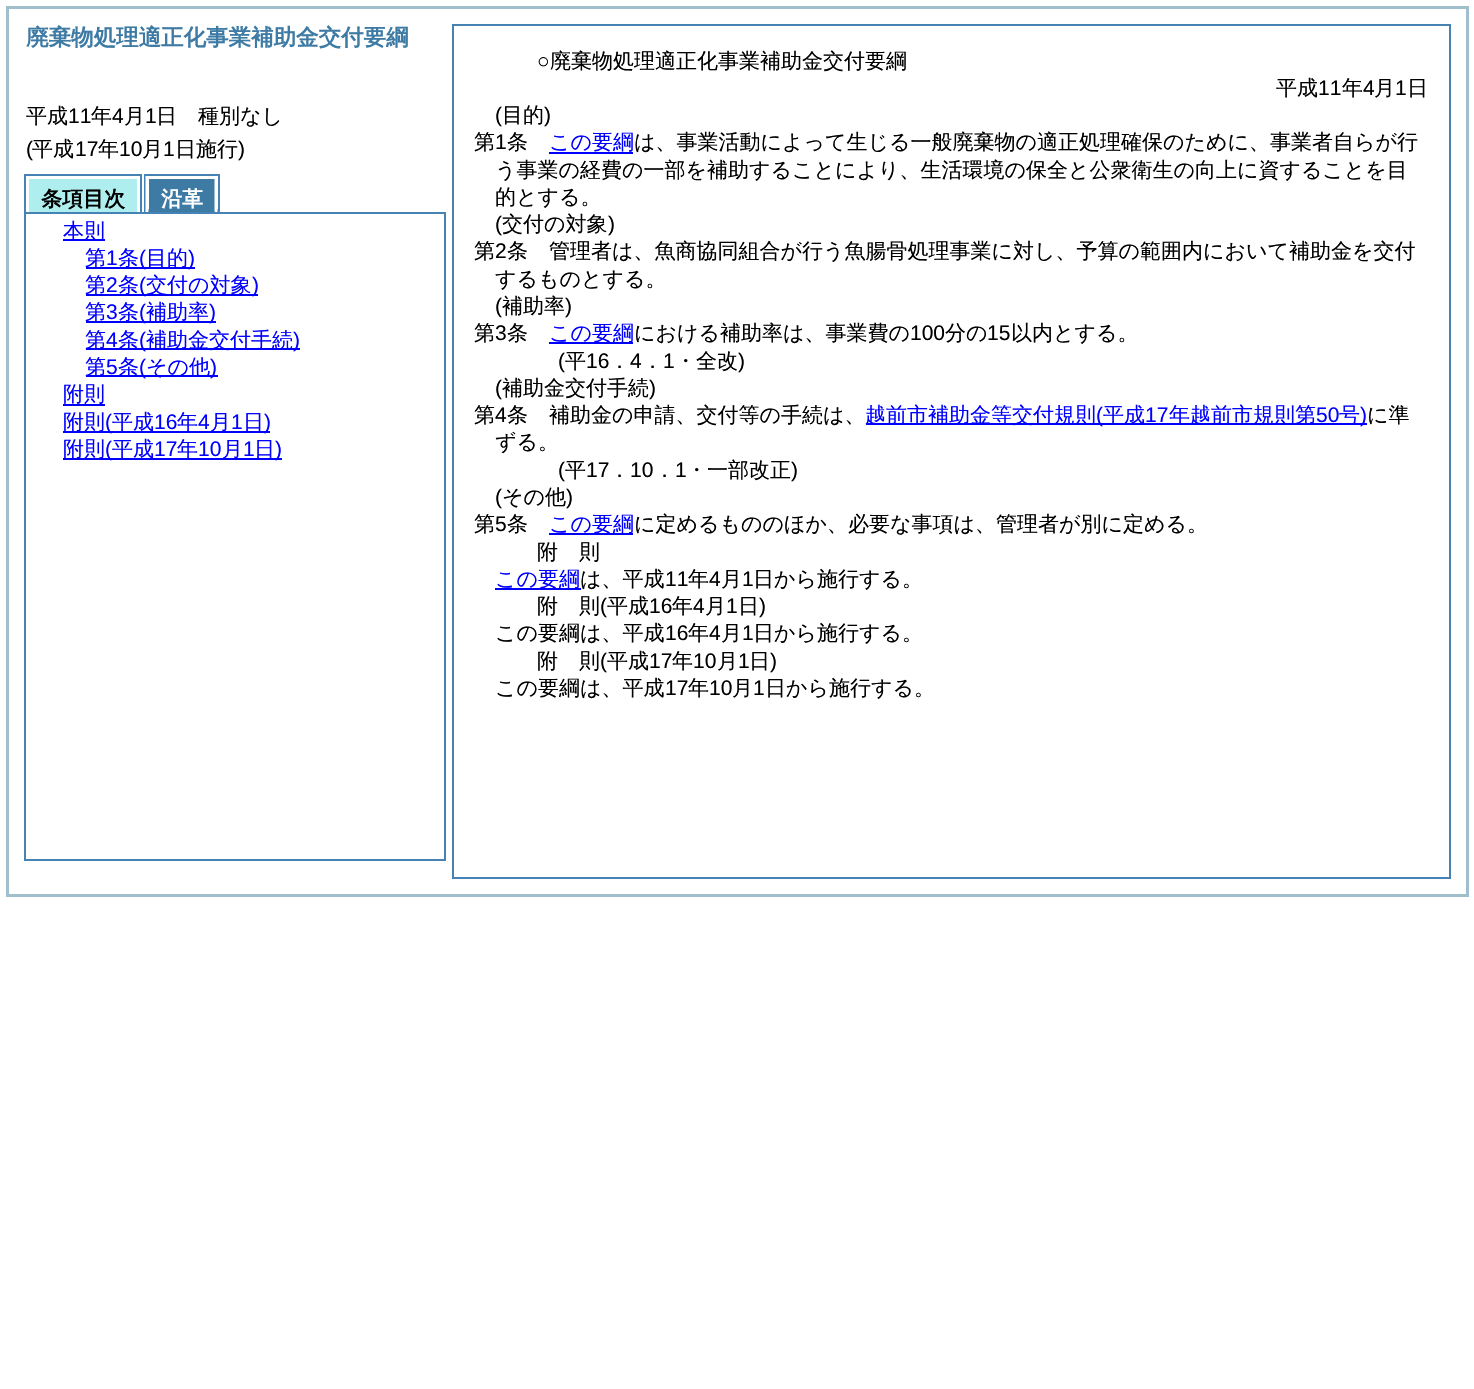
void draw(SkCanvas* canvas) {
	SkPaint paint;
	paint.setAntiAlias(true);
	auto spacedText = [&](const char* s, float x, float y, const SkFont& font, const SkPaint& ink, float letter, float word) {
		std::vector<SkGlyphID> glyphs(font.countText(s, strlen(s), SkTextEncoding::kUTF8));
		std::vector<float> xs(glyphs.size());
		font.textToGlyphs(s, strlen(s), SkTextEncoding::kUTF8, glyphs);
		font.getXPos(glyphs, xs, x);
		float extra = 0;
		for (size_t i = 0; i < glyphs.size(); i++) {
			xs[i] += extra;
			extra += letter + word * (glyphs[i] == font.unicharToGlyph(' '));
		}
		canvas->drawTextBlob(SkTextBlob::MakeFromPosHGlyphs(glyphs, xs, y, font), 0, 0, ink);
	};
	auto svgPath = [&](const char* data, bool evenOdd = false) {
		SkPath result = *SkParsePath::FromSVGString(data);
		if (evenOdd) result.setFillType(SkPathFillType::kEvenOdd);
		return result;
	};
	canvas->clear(0xffffffff);
	paint.setStroke(true);
	paint.setStrokeWidth(3);
	paint.setColor(0xffa0bfcc);
	canvas->drawRect(SkRect::MakeXYWH(7.5, 7.5, 1460, 888), paint);
	SkFont f1(fontMgr->matchFamilyStyle("WenQuanYi Zen Hei", SkFontStyle::Bold()), 22.5);
	f1.setSubpixel(true);
	paint.setStroke(false);
	paint.setColor(0xff3d7aa4);
	canvas->drawString("廃棄物処理適正化事業補助金交付要綱", 26, 45, f1, paint);
	SkFont f2(fontMgr->matchFamilyStyle("WenQuanYi Zen Hei", SkFontStyle(500, SkFontStyle::kNormal_Width, SkFontStyle::kUpright_Slant)), 21);
	f2.setSubpixel(true);
	paint.setColor(0xff000000);
	canvas->drawString("平成", 26, 123, f2, paint);
	SkFont f3(fontMgr->matchFamilyStyle("Liberation Sans", SkFontStyle::Normal()), 21);
	f3.setSubpixel(true);
	canvas->drawString("11", 68, 123, f3, paint);
	canvas->drawString("年", 91, 123, f2, paint);
	canvas->drawString("4", 112, 123, f3, paint);
	canvas->drawString("月", 124, 123, f2, paint);
	canvas->drawString("1", 145, 123, f3, paint);
	canvas->drawString("日　種別なし", 156, 123, f2, paint);
	canvas->drawString("(", 26, 156, f3, paint);
	canvas->drawString("平成", 32, 156, f2, paint);
	canvas->drawString("17", 75, 156, f3, paint);
	canvas->drawString("年", 98, 156, f2, paint);
	canvas->drawString("10", 119, 156, f3, paint);
	canvas->drawString("月", 142, 156, f2, paint);
	canvas->drawString("1", 163, 156, f3, paint);
	canvas->drawString("日施行", 175, 156, f2, paint);
	canvas->drawString(")", 238, 156, f3, paint);
	paint.setColor(0xff4682b4);
	canvas->drawRect(SkRect::MakeXYWH(24, 174, 117, 2), paint);
	canvas->drawRect(SkRect::MakeXYWH(140, 174, 2, 39), paint);
	canvas->drawRect(SkRect::MakeXYWH(24, 174, 2, 39), paint);
	paint.setColor(0xffafeeee);
	canvas->drawRect(SkRect::MakeXYWH(29, 179, 108, 33), paint);
	SkFont f4(fontMgr->matchFamilyStyle("WenQuanYi Zen Hei", SkFontStyle::Bold()), 21);
	f4.setSubpixel(true);
	paint.setColor(0xff000000);
	canvas->drawString("条項目次", 41, 206, f4, paint);
	paint.setColor(0xff4682b4);
	canvas->drawRect(SkRect::MakeXYWH(144, 174, 75, 2), paint);
	canvas->drawRect(SkRect::MakeXYWH(218, 174, 2, 39), paint);
	canvas->drawRect(SkRect::MakeXYWH(144, 209, 75, 3), paint);
	canvas->drawRect(SkRect::MakeXYWH(144, 174, 2, 39), paint);
	paint.setColor(0xff3d7aa4);
	canvas->drawRect(SkRect::MakeXYWH(149, 179, 66, 33), paint);
	paint.setColor(0xffffffff);
	canvas->drawPath(svgPath("M217.5 175.5V213L214.5 211.5V178.5Z"), paint);
	canvas->drawPath(svgPath("M145.5 213V175.5L148.5 178.5V211.5Z"), paint);
	canvas->drawString("沿革", 161, 206, f4, paint);
	paint.setStroke(true);
	paint.setStrokeWidth(2);
	paint.setColor(0xff4682b4);
	canvas->drawRect(SkRect::MakeXYWH(25, 213, 420, 647), paint);
	paint.setStroke(false);
	paint.setColor(0xff0000ff);
	canvas->drawRect(SkRect::MakeXYWH(63, 239, 42, 2), paint);
	canvas->drawString("本則", 63, 238, f2, paint);
	canvas->drawRect(SkRect::MakeXYWH(86, 267, 109, 2), paint);
	canvas->drawString("第", 85, 265, f2, paint);
	canvas->drawString("1", 106, 265, f3, paint);
	canvas->drawString("条", 118, 265, f2, paint);
	canvas->drawString("(", 139, 265, f3, paint);
	canvas->drawString("目的", 146, 265, f2, paint);
	canvas->drawString(")", 188, 265, f3, paint);
	canvas->drawRect(SkRect::MakeXYWH(86, 294, 172, 2), paint);
	canvas->drawString("第", 85, 292, f2, paint);
	canvas->drawString("2", 106, 292, f3, paint);
	canvas->drawString("条", 118, 292, f2, paint);
	canvas->drawString("(", 139, 292, f3, paint);
	canvas->drawString("交付の対象", 146, 292, f2, paint);
	canvas->drawString(")", 252, 292, f3, paint);
	canvas->drawRect(SkRect::MakeXYWH(86, 321, 130, 2), paint);
	canvas->drawString("第", 85, 319, f2, paint);
	canvas->drawString("3", 106, 319, f3, paint);
	canvas->drawString("条", 118, 319, f2, paint);
	canvas->drawString("(", 139, 319, f3, paint);
	canvas->drawString("補助率", 146, 319, f2, paint);
	canvas->drawString(")", 209, 319, f3, paint);
	canvas->drawRect(SkRect::MakeXYWH(86, 348, 214, 2), paint);
	canvas->drawString("第", 85, 347, f2, paint);
	canvas->drawString("4", 106, 347, f3, paint);
	canvas->drawString("条", 118, 347, f2, paint);
	canvas->drawString("(", 139, 347, f3, paint);
	canvas->drawString("補助金交付手続", 146, 347, f2, paint);
	canvas->drawString(")", 293, 347, f3, paint);
	canvas->drawRect(SkRect::MakeXYWH(86, 375, 132, 2), paint);
	canvas->drawString("第", 85, 374, f2, paint);
	canvas->drawString("5", 106, 374, f3, paint);
	canvas->drawString("条", 118, 374, f2, paint);
	canvas->drawString("(", 139, 374, f3, paint);
	canvas->drawString("その他", 146, 374, f2, paint);
	canvas->drawString(")", 210, 374, f3, paint);
	canvas->drawRect(SkRect::MakeXYWH(63, 404, 42, 2), paint);
	canvas->drawString("附則", 63, 401, f2, paint);
	canvas->drawRect(SkRect::MakeXYWH(63, 431, 207, 2), paint);
	canvas->drawString("附則", 63, 429, f2, paint);
	canvas->drawString("(", 105, 429, f3, paint);
	canvas->drawString("平成", 112, 429, f2, paint);
	canvas->drawString("16", 154, 429, f3, paint);
	canvas->drawString("年", 177, 429, f2, paint);
	canvas->drawString("4", 198, 429, f3, paint);
	canvas->drawString("月", 210, 429, f2, paint);
	canvas->drawString("1", 231, 429, f3, paint);
	canvas->drawString("日", 243, 429, f2, paint);
	canvas->drawString(")", 264, 429, f3, paint);
	canvas->drawRect(SkRect::MakeXYWH(63, 458, 219, 2), paint);
	canvas->drawString("附則", 63, 456, f2, paint);
	canvas->drawString("(", 105, 456, f3, paint);
	canvas->drawString("平成", 112, 456, f2, paint);
	canvas->drawString("17", 154, 456, f3, paint);
	canvas->drawString("年", 177, 456, f2, paint);
	canvas->drawString("10", 198, 456, f3, paint);
	canvas->drawString("月", 222, 456, f2, paint);
	canvas->drawString("1", 243, 456, f3, paint);
	canvas->drawString("日", 254, 456, f2, paint);
	canvas->drawString(")", 275, 456, f3, paint);
	paint.setStroke(true);
	paint.setColor(0xff4682b4);
	canvas->drawRect(SkRect::MakeXYWH(453, 25, 997, 853), paint);
	paint.setStroke(false);
	paint.setColor(0xff000000);
	canvas->drawString("○", 537, 68, f3, paint);
	canvas->drawString("廃棄物処理適正化事業補助金交付要綱", 550, 68, f2, paint);
	canvas->drawString("平成", 1276, 95, f2, paint);
	canvas->drawString("11", 1318, 95, f3, paint);
	canvas->drawString("年", 1342, 95, f2, paint);
	canvas->drawString("4", 1363, 95, f3, paint);
	canvas->drawString("月", 1374, 95, f2, paint);
	canvas->drawString("1", 1395, 95, f3, paint);
	canvas->drawString("日", 1407, 95, f2, paint);
	canvas->drawString("(", 495, 122, f3, paint);
	canvas->drawString("目的", 502, 122, f2, paint);
	canvas->drawString(")", 544, 122, f3, paint);
	canvas->drawString("第", 474, 149, f2, paint);
	canvas->drawString("1", 495, 149, f3, paint);
	canvas->drawString("条", 507, 149, f2, paint);
	paint.setColor(0xff0000ff);
	canvas->drawString("この要綱", 549, 149, f2, paint);
	canvas->drawRect(SkRect::MakeXYWH(549, 152, 84, 2), paint);
	paint.setColor(0xff000000);
	canvas->drawString("は、事業活動によって生じる一般廃棄物の適正処理確保のために、事業者自らが行", 634, 149, f2, paint);
	canvas->drawString("う事業の経費の一部を補助することにより、生活環境の保全と公衆衛生の向上に資することを目", 495, 177, f2, paint);
	canvas->drawString("的とする。", 495, 204, f2, paint);
	canvas->drawString("(", 495, 231, f3, paint);
	canvas->drawString("交付の対象", 502, 231, f2, paint);
	canvas->drawString(")", 608, 231, f3, paint);
	canvas->drawString("第", 474, 258, f2, paint);
	canvas->drawString("2", 495, 258, f3, paint);
	canvas->drawString("条", 507, 258, f2, paint);
	canvas->drawString("管理者は、魚商協同組合が行う魚腸骨処理事業に対し、予算の範囲内において補助金を交付", 549, 258, f2, paint);
	canvas->drawString("するものとする。", 495, 286, f2, paint);
	canvas->drawString("(", 495, 313, f3, paint);
	canvas->drawString("補助率", 502, 313, f2, paint);
	canvas->drawString(")", 565, 313, f3, paint);
	canvas->drawString("第", 474, 340, f2, paint);
	canvas->drawString("3", 495, 340, f3, paint);
	canvas->drawString("条", 507, 340, f2, paint);
	paint.setColor(0xff0000ff);
	canvas->drawRect(SkRect::MakeXYWH(549, 342, 84, 2), paint);
	canvas->drawString("この要綱", 549, 340, f2, paint);
	paint.setColor(0xff000000);
	canvas->drawString("における補助率は、事業費の", 634, 340, f2, paint);
	canvas->drawString("100", 910, 340, f3, paint);
	canvas->drawString("分の", 945, 340, f2, paint);
	canvas->drawString("15", 987, 340, f3, paint);
	canvas->drawString("以内とする。", 1011, 340, f2, paint);
	canvas->drawString("(", 558, 368, f3, paint);
	canvas->drawString("平", 565, 368, f2, paint);
	canvas->drawString("16", 586, 368, f3, paint);
	canvas->drawString("．", 609, 368, f2, paint);
	canvas->drawString("4", 630, 368, f3, paint);
	canvas->drawString("．", 642, 368, f2, paint);
	canvas->drawString("1", 663, 368, f3, paint);
	canvas->drawString("・全改", 675, 368, f2, paint);
	canvas->drawString(")", 738, 368, f3, paint);
	canvas->drawString("(", 495, 395, f3, paint);
	canvas->drawString("補助金交付手続", 502, 395, f2, paint);
	canvas->drawString(")", 649, 395, f3, paint);
	canvas->drawString("第", 474, 422, f2, paint);
	canvas->drawString("4", 495, 422, f3, paint);
	canvas->drawString("条", 507, 422, f2, paint);
	canvas->drawString("補助金の申請、交付等の手続は、", 549, 422, f2, paint);
	paint.setColor(0xff0000ff);
	canvas->drawRect(SkRect::MakeXYWH(866, 423, 501, 2), paint);
	canvas->drawString("越前市補助金等交付規則", 865, 422, f2, paint);
	canvas->drawString("(", 1096, 422, f3, paint);
	canvas->drawString("平成", 1103, 422, f2, paint);
	canvas->drawString("17", 1145, 422, f3, paint);
	canvas->drawString("年越前市規則第", 1169, 422, f2, paint);
	canvas->drawString("50", 1316, 422, f3, paint);
	canvas->drawString("号", 1339, 422, f2, paint);
	canvas->drawString(")", 1360, 422, f3, paint);
	paint.setColor(0xff000000);
	canvas->drawString("に準", 1367, 422, f2, paint);
	canvas->drawString("ずる。", 495, 449, f2, paint);
	canvas->drawString("(", 558, 477, f3, paint);
	canvas->drawString("平", 565, 477, f2, paint);
	canvas->drawString("17", 586, 477, f3, paint);
	canvas->drawString("．", 609, 477, f2, paint);
	canvas->drawString("10", 630, 477, f3, paint);
	canvas->drawString("．", 654, 477, f2, paint);
	canvas->drawString("1", 675, 477, f3, paint);
	canvas->drawString("・一部改正", 686, 477, f2, paint);
	canvas->drawString(")", 791, 477, f3, paint);
	canvas->drawString("(", 495, 504, f3, paint);
	canvas->drawString("その他", 502, 504, f2, paint);
	canvas->drawString(")", 566, 504, f3, paint);
	canvas->drawString("第", 474, 531, f2, paint);
	canvas->drawString("5", 495, 531, f3, paint);
	canvas->drawString("条", 507, 531, f2, paint);
	paint.setColor(0xff0000ff);
	canvas->drawRect(SkRect::MakeXYWH(549, 533, 84, 2), paint);
	canvas->drawString("この要綱", 549, 531, f2, paint);
	paint.setColor(0xff000000);
	canvas->drawString("に定めるもののほか、必要な事項は、管理者が別に定める。", 634, 531, f2, paint);
	spacedText("附", 537, 559, f2, paint, 21, 0);
	canvas->drawString("則", 579, 559, f2, paint);
	paint.setColor(0xff0000ff);
	canvas->drawRect(SkRect::MakeXYWH(495, 588, 86, 2), paint);
	canvas->drawString("この要綱", 495, 586, f2, paint);
	paint.setColor(0xff000000);
	canvas->drawString("は、平成", 580, 586, f2, paint);
	canvas->drawString("11", 665, 586, f3, paint);
	canvas->drawString("年", 688, 586, f2, paint);
	canvas->drawString("4", 709, 586, f3, paint);
	canvas->drawString("月", 721, 586, f2, paint);
	canvas->drawString("1", 742, 586, f3, paint);
	canvas->drawString("日から施行する。", 753, 586, f2, paint);
	spacedText("附", 537, 613, f2, paint, 21, 0);
	canvas->drawString("則", 579, 613, f2, paint);
	canvas->drawString("(", 600, 613, f3, paint);
	canvas->drawString("平成", 607, 613, f2, paint);
	canvas->drawString("16", 649, 613, f3, paint);
	canvas->drawString("年", 672, 613, f2, paint);
	canvas->drawString("4", 693, 613, f3, paint);
	canvas->drawString("月", 705, 613, f2, paint);
	canvas->drawString("1", 726, 613, f3, paint);
	canvas->drawString("日", 738, 613, f2, paint);
	canvas->drawString(")", 759, 613, f3, paint);
	canvas->drawString("この要綱は、平成", 495, 640, f2, paint);
	canvas->drawString("16", 665, 640, f3, paint);
	canvas->drawString("年", 688, 640, f2, paint);
	canvas->drawString("4", 709, 640, f3, paint);
	canvas->drawString("月", 721, 640, f2, paint);
	canvas->drawString("1", 742, 640, f3, paint);
	canvas->drawString("日から施行する。", 753, 640, f2, paint);
	spacedText("附", 537, 668, f2, paint, 21, 0);
	canvas->drawString("則", 579, 668, f2, paint);
	canvas->drawString("(", 600, 668, f3, paint);
	canvas->drawString("平成", 607, 668, f2, paint);
	canvas->drawString("17", 649, 668, f3, paint);
	canvas->drawString("年", 672, 668, f2, paint);
	canvas->drawString("10", 693, 668, f3, paint);
	canvas->drawString("月", 717, 668, f2, paint);
	canvas->drawString("1", 738, 668, f3, paint);
	canvas->drawString("日", 749, 668, f2, paint);
	canvas->drawString(")", 770, 668, f3, paint);
	canvas->drawString("この要綱は、平成", 495, 695, f2, paint);
	canvas->drawString("17", 665, 695, f3, paint);
	canvas->drawString("年", 688, 695, f2, paint);
	canvas->drawString("10", 709, 695, f3, paint);
	canvas->drawString("月", 732, 695, f2, paint);
	canvas->drawString("1", 753, 695, f3, paint);
	canvas->drawString("日から施行する。", 765, 695, f2, paint);
}
